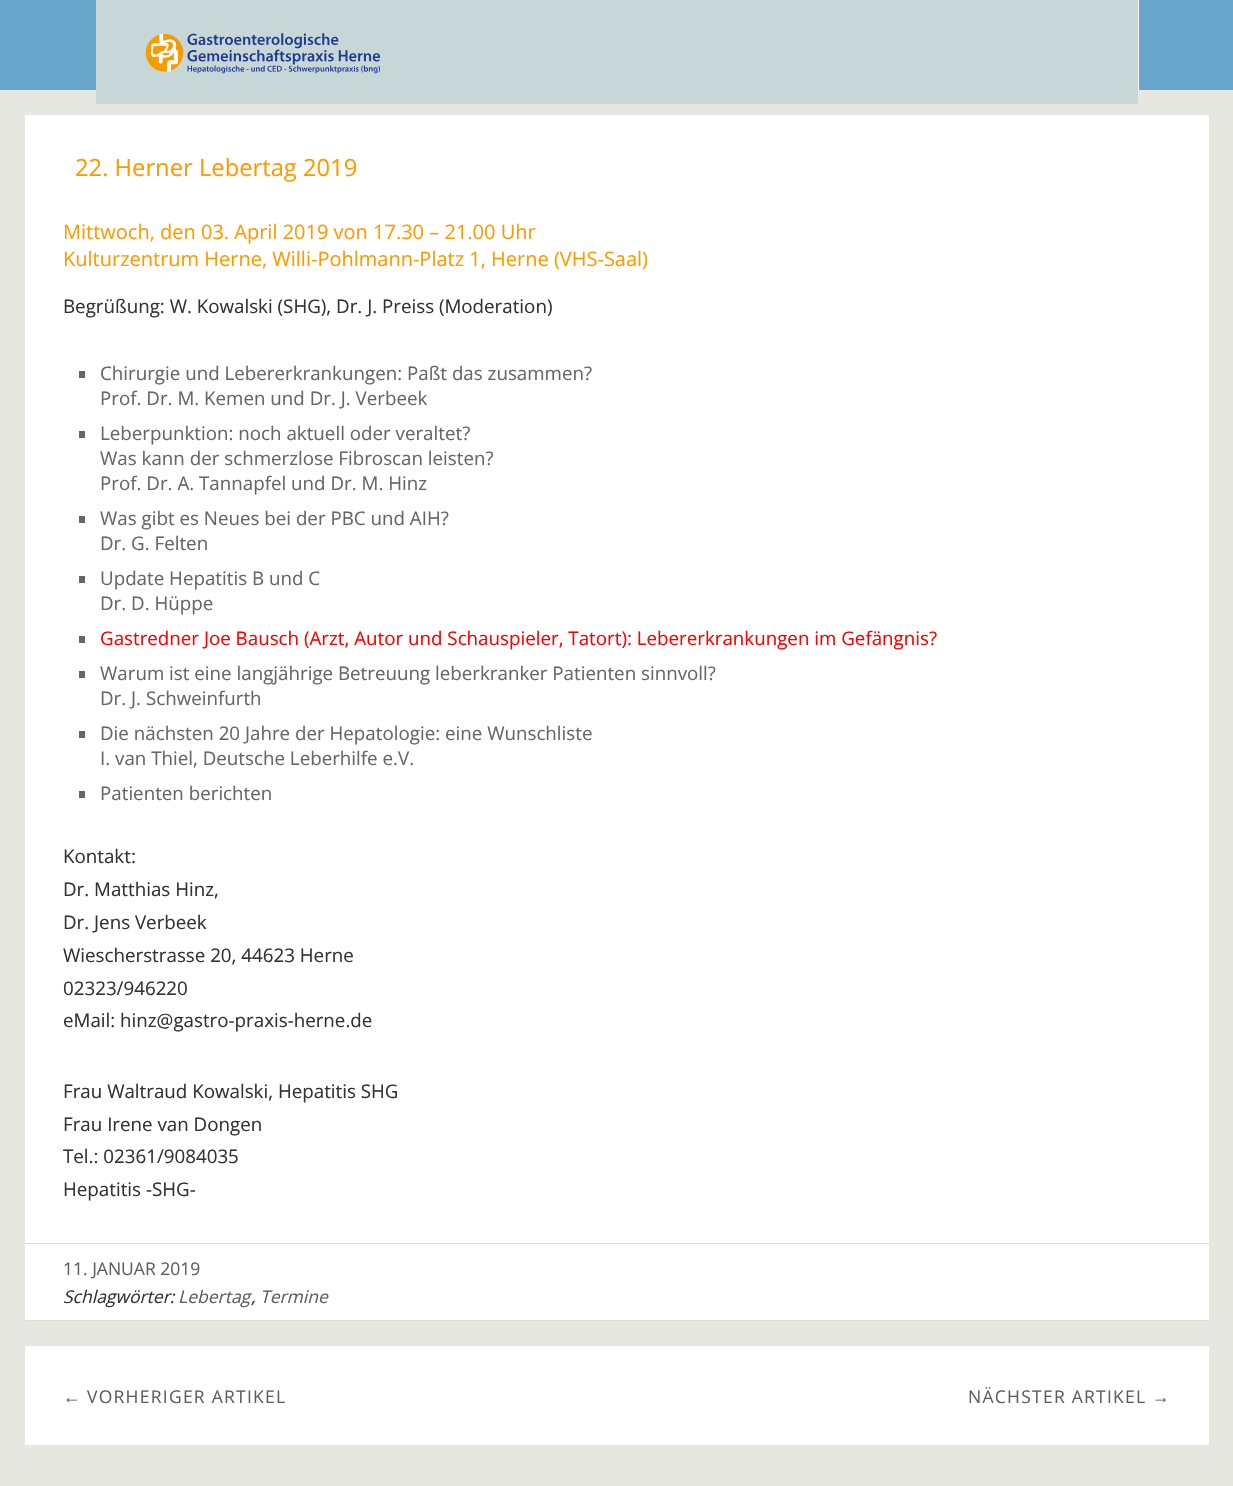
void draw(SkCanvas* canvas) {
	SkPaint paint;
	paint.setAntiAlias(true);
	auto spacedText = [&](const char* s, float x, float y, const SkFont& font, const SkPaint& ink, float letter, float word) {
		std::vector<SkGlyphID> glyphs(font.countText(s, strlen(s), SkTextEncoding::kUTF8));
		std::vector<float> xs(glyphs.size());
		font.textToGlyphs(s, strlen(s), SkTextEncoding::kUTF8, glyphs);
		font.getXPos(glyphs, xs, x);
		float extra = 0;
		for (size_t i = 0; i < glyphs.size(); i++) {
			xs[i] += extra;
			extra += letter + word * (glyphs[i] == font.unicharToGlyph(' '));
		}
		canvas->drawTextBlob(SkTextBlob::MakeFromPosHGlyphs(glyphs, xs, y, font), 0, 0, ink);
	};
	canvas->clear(0xffe7e7e2);
	paint.setColor(0xffc7d7d8);
	canvas->drawRect(SkRect::MakeXYWH(96, 0, 1042, 104), paint);
	canvas->drawImageRect(SkImages::DeferredFromEncodedData(SkData::MakeFromFileName("img1.png")), SkRect::MakeXYWH(145, 33, 235, 41), SkSamplingOptions());
	paint.setColor(0xff69a6cc);
	canvas->drawRect(SkRect::MakeXYWH(0, 0, 96, 90), paint);
	canvas->drawRect(SkRect::MakeXYWH(1139, 0, 94, 90), paint);
	paint.setColor(0xffffffff);
	canvas->drawRect(SkRect::MakeXYWH(1138, 0, 1, 90), paint);
	canvas->drawRect(SkRect::MakeXYWH(25, 115, 1184, 1205), paint);
	SkFont f1(fontMgr->matchFamilyStyle("Open Sans", SkFontStyle::Normal()), 23.75);
	f1.setSubpixel(true);
	paint.setColor(0xffff9900);
	canvas->drawString("22. Herner Lebertag 2019", 75, 176, f1, paint);
	SkFont f2(fontMgr->matchFamilyStyle("Open Sans", SkFontStyle::Normal()), 20);
	f2.setSubpixel(true);
	canvas->drawString("Mittwoch, den 03. April 2019 von 17.30 – 21.00 Uhr", 63, 239, f2, paint);
	canvas->drawString("Kulturzentrum Herne, Willi-Pohlmann-Platz 1, Herne (VHS-Saal)", 63, 266, f2, paint);
	SkFont f3(fontMgr->matchFamilyStyle("Open Sans", SkFontStyle::Normal()), 18.75);
	f3.setSubpixel(true);
	paint.setColor(0xff333333);
	canvas->drawString("Begrüßung: W. Kowalski (SHG), Dr. J. Preiss (Moderation)", 63, 313, f3, paint);
	paint.setColor(0xff666666);
	canvas->drawRect(SkRect::MakeXYWH(79, 371, 6, 7), paint);
	canvas->drawString("Chirurgie und Lebererkrankungen: Paßt das zusammen?", 100, 380, f3, paint);
	canvas->drawString("Prof. Dr. M. Kemen und Dr. J. Verbeek", 100, 405, f3, paint);
	canvas->drawRect(SkRect::MakeXYWH(79, 431, 6, 7), paint);
	canvas->drawString("Leberpunktion: noch aktuell oder veraltet?", 100, 440, f3, paint);
	canvas->drawString("Was kann der schmerzlose Fibroscan leisten?", 100, 465, f3, paint);
	canvas->drawString("Prof. Dr. A. Tannapfel und Dr. M. Hinz", 100, 490, f3, paint);
	canvas->drawRect(SkRect::MakeXYWH(79, 516, 6, 7), paint);
	canvas->drawString("Was gibt es Neues bei der PBC und AIH?", 100, 525, f3, paint);
	canvas->drawString("Dr. G. Felten", 100, 550, f3, paint);
	canvas->drawRect(SkRect::MakeXYWH(79, 576, 6, 7), paint);
	canvas->drawString("Update Hepatitis B und C", 100, 585, f3, paint);
	canvas->drawString("Dr. D. Hüppe", 100, 610, f3, paint);
	canvas->drawRect(SkRect::MakeXYWH(79, 636, 6, 7), paint);
	paint.setColor(0xffff0000);
	canvas->drawString("Gastredner Joe Bausch (Arzt, Autor und Schauspieler, Tatort): Lebererkrankungen im Gefängnis?", 100, 645, f3, paint);
	paint.setColor(0xff666666);
	canvas->drawRect(SkRect::MakeXYWH(79, 671, 6, 7), paint);
	canvas->drawString("Warum ist eine langjährige Betreuung leberkranker Patienten sinnvoll?", 100, 680, f3, paint);
	canvas->drawString("Dr. J. Schweinfurth", 100, 705, f3, paint);
	canvas->drawRect(SkRect::MakeXYWH(79, 731, 6, 7), paint);
	canvas->drawString("Die nächsten 20 Jahre der Hepatologie: eine Wunschliste", 100, 740, f3, paint);
	canvas->drawString("I. van Thiel, Deutsche Leberhilfe e.V.", 100, 765, f3, paint);
	canvas->drawRect(SkRect::MakeXYWH(79, 791, 6, 7), paint);
	canvas->drawString("Patienten berichten", 100, 800, f3, paint);
	paint.setColor(0xff333333);
	canvas->drawString("Kontakt:", 63, 863, f3, paint);
	canvas->drawString("Dr. Matthias Hinz,", 63, 896, f3, paint);
	canvas->drawString("Dr. Jens Verbeek", 63, 929, f3, paint);
	canvas->drawString("Wiescherstrasse 20, 44623 Herne", 63, 962, f3, paint);
	canvas->drawString("02323/946220", 63, 995, f3, paint);
	canvas->drawString("eMail: hinz@gastro-praxis-herne.de", 63, 1027, f3, paint);
	canvas->drawString("Frau Waltraud Kowalski, Hepatitis SHG", 63, 1098, f3, paint);
	canvas->drawString("Frau Irene van Dongen", 63, 1131, f3, paint);
	canvas->drawString("Tel.: 02361/9084035", 63, 1163, f3, paint);
	canvas->drawString("Hepatitis -SHG-", 63, 1196, f3, paint);
	paint.setColor(0xffdcdcdc);
	canvas->drawRect(SkRect::MakeXYWH(25, 1243, 1184, 1), paint);
	canvas->drawRect(SkRect::MakeXYWH(25, 1320, 1184, 1), paint);
	SkFont f4(fontMgr->matchFamilyStyle("Open Sans", SkFontStyle::Normal()), 17.5);
	f4.setSubpixel(true);
	paint.setColor(0xff5e5e5e);
	canvas->drawString("11. JANUAR 2019", 63, 1275, f4, paint);
	SkFont f5(fontMgr->matchFamilyStyle("Open Sans", SkFontStyle::Italic()), 17.5);
	f5.setSubpixel(true);
	paint.setColor(0xff333333);
	canvas->drawString("Schlagwörter:", 63, 1303, f5, paint);
	paint.setColor(0xff5e5e5e);
	canvas->drawString("Lebertag", 178, 1303, f5, paint);
	canvas->drawString("Termine", 260, 1303, f5, paint);
	paint.setColor(0xff333333);
	canvas->drawString(",", 251, 1303, f5, paint);
	paint.setColor(0xffffffff);
	canvas->drawRect(SkRect::MakeXYWH(25, 1346, 1184, 99), paint);
	SkFont f6(fontMgr->matchFamilyStyle("Liberation Sans", SkFontStyle::Normal()), 17.5);
	f6.setSubpixel(true);
	paint.setColor(0xff5e5e5e);
	spacedText("←", 63, 1403, f6, paint, 1.25, 0);
	spacedText("VORHERIGER ARTIKEL", 87, 1403, f4, paint, 1.25, 0);
	spacedText("NÄCHSTER ARTIKEL", 968, 1403, f4, paint, 1.25, 0);
	spacedText("→", 1152, 1403, f6, paint, 1.25, 0);
}
